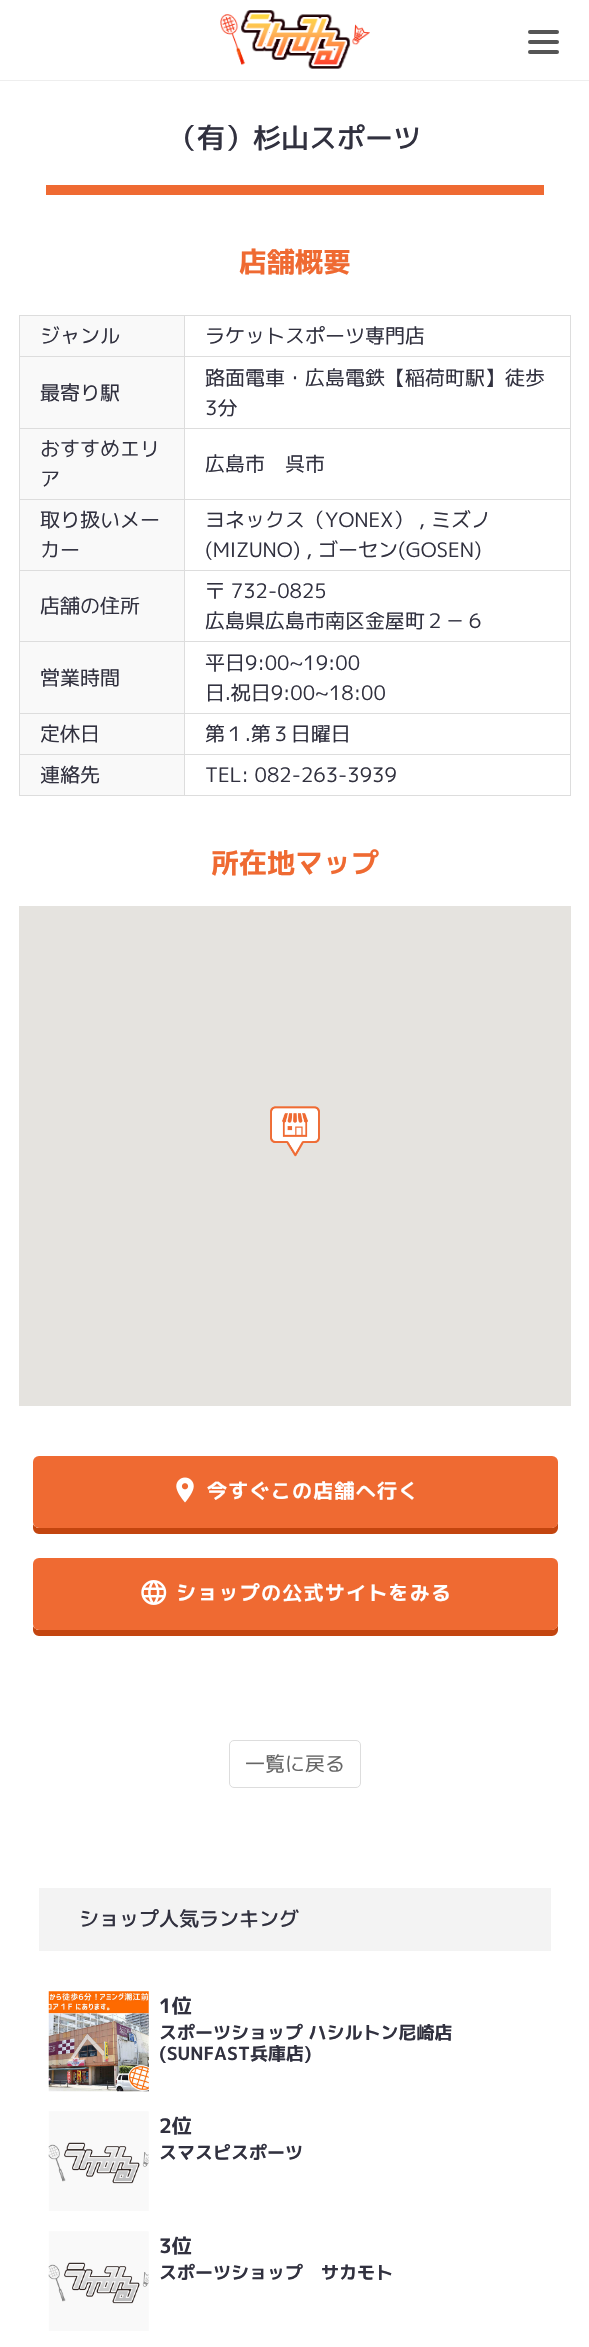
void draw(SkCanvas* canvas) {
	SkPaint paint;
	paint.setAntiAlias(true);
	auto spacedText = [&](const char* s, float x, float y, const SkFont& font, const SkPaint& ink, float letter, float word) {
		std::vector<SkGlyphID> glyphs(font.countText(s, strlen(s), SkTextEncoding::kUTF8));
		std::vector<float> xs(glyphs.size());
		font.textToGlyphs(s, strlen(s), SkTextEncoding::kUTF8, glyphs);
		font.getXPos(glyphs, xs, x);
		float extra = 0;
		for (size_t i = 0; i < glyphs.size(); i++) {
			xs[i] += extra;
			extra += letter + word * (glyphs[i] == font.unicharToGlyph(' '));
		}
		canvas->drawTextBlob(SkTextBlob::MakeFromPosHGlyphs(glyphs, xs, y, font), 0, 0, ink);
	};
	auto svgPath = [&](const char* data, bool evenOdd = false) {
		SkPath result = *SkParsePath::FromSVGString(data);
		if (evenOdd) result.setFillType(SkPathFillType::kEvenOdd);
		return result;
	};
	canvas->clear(0xffffffff);
	canvas->drawImageRect(SkImages::DeferredFromEncodedData(SkData::MakeFromFileName("img1.png")), SkRect::MakeXYWH(220, 10, 150, 59), SkSamplingOptions());
	paint.setColor(0xff555555);
	canvas->drawRoundRect(SkRect::MakeXYWH(528, 30, 31, 4), 2, 2, paint);
	canvas->drawRoundRect(SkRect::MakeXYWH(528, 40, 31, 4), 2, 2, paint);
	canvas->drawRoundRect(SkRect::MakeXYWH(528, 50, 31, 4), 2, 2, paint);
	paint.setColor(0xffeeeeee);
	canvas->drawRect(SkRect::MakeXYWH(0, 80, 589, 1), paint);
	paint.setColor(0xffef6a32);
	canvas->drawRect(SkRect::MakeXYWH(46, 185, 498, 10), paint);
	SkFont f1(fontMgr->matchFamilyStyle("M PLUS 1p", SkFontStyle(500, SkFontStyle::kNormal_Width, SkFontStyle::kUpright_Slant)), 28);
	f1.setSubpixel(true);
	paint.setColor(0xff31313f);
	canvas->drawString("（有）杉山スポーツ", 169, 148, f1, paint);
	SkFont f2(fontMgr->matchFamilyStyle("M PLUS 1p", SkFontStyle::Bold()), 28);
	f2.setSubpixel(true);
	paint.setColor(0xffef6a32);
	canvas->drawString("店舗概要", 239, 272, f2, paint);
	paint.setColor(0xfff9f9f9);
	canvas->drawRect(SkRect::MakeXYWH(20, 316, 164, 40), paint);
	paint.setColor(0xffdddddd);
	canvas->drawRect(SkRect::MakeXYWH(184, 315, 387, 1), paint);
	canvas->drawRect(SkRect::MakeXYWH(184, 356, 387, 1), paint);
	canvas->drawRect(SkRect::MakeXYWH(184, 428, 387, 1), paint);
	canvas->drawRect(SkRect::MakeXYWH(184, 499, 387, 1), paint);
	canvas->drawRect(SkRect::MakeXYWH(184, 570, 387, 1), paint);
	canvas->drawRect(SkRect::MakeXYWH(184, 641, 387, 1), paint);
	canvas->drawRect(SkRect::MakeXYWH(184, 713, 387, 1), paint);
	canvas->drawRect(SkRect::MakeXYWH(184, 754, 387, 1), paint);
	canvas->drawRect(SkRect::MakeXYWH(570, 754, 1, 42), paint);
	canvas->drawRect(SkRect::MakeXYWH(184, 795, 387, 1), paint);
	canvas->drawRect(SkRect::MakeXYWH(184, 754, 1, 42), paint);
	canvas->drawRect(SkRect::MakeXYWH(19, 754, 166, 1), paint);
	canvas->drawRect(SkRect::MakeXYWH(184, 713, 1, 42), paint);
	canvas->drawRect(SkRect::MakeXYWH(19, 713, 166, 1), paint);
	canvas->drawRect(SkRect::MakeXYWH(184, 641, 1, 73), paint);
	canvas->drawRect(SkRect::MakeXYWH(19, 641, 166, 1), paint);
	canvas->drawRect(SkRect::MakeXYWH(184, 570, 1, 73), paint);
	canvas->drawRect(SkRect::MakeXYWH(19, 570, 166, 1), paint);
	canvas->drawRect(SkRect::MakeXYWH(184, 499, 1, 72), paint);
	canvas->drawRect(SkRect::MakeXYWH(19, 499, 166, 1), paint);
	canvas->drawRect(SkRect::MakeXYWH(184, 428, 1, 72), paint);
	canvas->drawRect(SkRect::MakeXYWH(19, 428, 166, 1), paint);
	canvas->drawRect(SkRect::MakeXYWH(184, 356, 1, 73), paint);
	canvas->drawRect(SkRect::MakeXYWH(19, 356, 166, 1), paint);
	canvas->drawRect(SkRect::MakeXYWH(184, 315, 1, 43), paint);
	canvas->drawRect(SkRect::MakeXYWH(19, 315, 166, 1), paint);
	canvas->drawRect(SkRect::MakeXYWH(19, 795, 166, 1), paint);
	canvas->drawRect(SkRect::MakeXYWH(19, 754, 1, 42), paint);
	canvas->drawRect(SkRect::MakeXYWH(19, 713, 1, 42), paint);
	canvas->drawRect(SkRect::MakeXYWH(19, 641, 1, 73), paint);
	canvas->drawRect(SkRect::MakeXYWH(19, 570, 1, 73), paint);
	canvas->drawRect(SkRect::MakeXYWH(19, 499, 1, 72), paint);
	canvas->drawRect(SkRect::MakeXYWH(19, 428, 1, 72), paint);
	canvas->drawRect(SkRect::MakeXYWH(19, 356, 1, 73), paint);
	canvas->drawRect(SkRect::MakeXYWH(19, 315, 1, 43), paint);
	SkFont f3(fontMgr->matchFamilyStyle("M PLUS 1p", SkFontStyle::Normal()), 20);
	f3.setSubpixel(true);
	paint.setColor(0xff31313f);
	canvas->drawString("ジャンル", 40, 343, f3, paint);
	paint.setColor(0xffdddddd);
	canvas->drawRect(SkRect::MakeXYWH(570, 713, 1, 42), paint);
	canvas->drawRect(SkRect::MakeXYWH(570, 641, 1, 73), paint);
	canvas->drawRect(SkRect::MakeXYWH(570, 570, 1, 73), paint);
	canvas->drawRect(SkRect::MakeXYWH(570, 499, 1, 72), paint);
	canvas->drawRect(SkRect::MakeXYWH(570, 428, 1, 72), paint);
	canvas->drawRect(SkRect::MakeXYWH(570, 356, 1, 73), paint);
	canvas->drawRect(SkRect::MakeXYWH(570, 315, 1, 43), paint);
	paint.setColor(0xff31313f);
	canvas->drawString("ラケットスポーツ専門店", 205, 343, f3, paint);
	paint.setColor(0xfff9f9f9);
	canvas->drawRect(SkRect::MakeXYWH(20, 357, 164, 71), paint);
	paint.setColor(0xff31313f);
	canvas->drawString("最寄り駅", 40, 400, f3, paint);
	canvas->drawString("路面電車・広島電鉄【稲荷町駅】徒歩", 205, 385, f3, paint);
	canvas->drawString("3分", 205, 415, f3, paint);
	paint.setColor(0xfff9f9f9);
	canvas->drawRect(SkRect::MakeXYWH(20, 429, 164, 70), paint);
	paint.setColor(0xff31313f);
	canvas->drawString("おすすめエリ", 40, 456, f3, paint);
	canvas->drawString("ア", 40, 486, f3, paint);
	canvas->drawString("広島市　呉市", 205, 471, f3, paint);
	paint.setColor(0xfff9f9f9);
	canvas->drawRect(SkRect::MakeXYWH(20, 500, 164, 70), paint);
	paint.setColor(0xff31313f);
	canvas->drawString("取り扱いメー", 40, 527, f3, paint);
	canvas->drawString("カー", 40, 557, f3, paint);
	canvas->drawString("ヨネックス（YONEX） , ミズノ", 205, 527, f3, paint);
	canvas->drawString("(MIZUNO) , ゴーセン(GOSEN)", 205, 557, f3, paint);
	paint.setColor(0xfff9f9f9);
	canvas->drawRect(SkRect::MakeXYWH(20, 571, 164, 70), paint);
	paint.setColor(0xff31313f);
	canvas->drawString("店舗の住所", 40, 613, f3, paint);
	canvas->drawString("〒 732-0825", 205, 598, f3, paint);
	canvas->drawString("広島県広島市南区金屋町２－６", 205, 628, f3, paint);
	paint.setColor(0xfff9f9f9);
	canvas->drawRect(SkRect::MakeXYWH(20, 642, 164, 71), paint);
	paint.setColor(0xff31313f);
	canvas->drawString("営業時間", 40, 685, f3, paint);
	canvas->drawString("平日9:00~19:00", 205, 670, f3, paint);
	canvas->drawString("日.祝日9:00~18:00", 205, 700, f3, paint);
	paint.setColor(0xfff9f9f9);
	canvas->drawRect(SkRect::MakeXYWH(20, 714, 164, 40), paint);
	paint.setColor(0xff31313f);
	canvas->drawString("定休日", 40, 741, f3, paint);
	canvas->drawString("第１.第３日曜日", 205, 741, f3, paint);
	paint.setColor(0xfff9f9f9);
	canvas->drawRect(SkRect::MakeXYWH(20, 755, 164, 40), paint);
	paint.setColor(0xff31313f);
	canvas->drawString("連絡先", 40, 782, f3, paint);
	canvas->drawString("TEL: 082-263-3939", 205, 782, f3, paint);
	paint.setColor(0xffef6a32);
	canvas->drawString("所在地マップ", 211, 873, f2, paint);
	paint.setColor(0xffe5e3df);
	canvas->drawRect(SkRect::MakeXYWH(19, 906, 552, 500), paint);
	canvas->drawImageRect(SkImages::DeferredFromEncodedData(SkData::MakeFromFileName("img2.png")), SkRect::MakeXYWH(270, 1106, 50, 51), SkSamplingOptions());
	paint.setColor(0xffc3450f);
	canvas->drawPath(svgPath("M33 1524V1528C33 1531 36 1534 39 1534H552C555 1534 558 1531 558 1528V1469V1467V1521C558 1525 555 1528 551 1528H39C36 1528 34 1526 33 1524Z"), paint);
	paint.setColor(0xffef6a32);
	canvas->drawRoundRect(SkRect::MakeXYWH(33, 1456, 525, 72), 6, 6, paint);
	canvas->drawImageRect(SkImages::DeferredFromEncodedData(SkData::MakeFromFileName("img3.png")), SkRect::MakeXYWH(176, 1477, 18, 26), SkSamplingOptions());
	SkFont f4(fontMgr->matchFamilyStyle("M PLUS 1p", SkFontStyle::Bold()), 20);
	f4.setSubpixel(true);
	paint.setColor(0xffffffff);
	spacedText("今すぐこの店舗へ行く", 207, 1498, f4, paint, 1.25, 0);
	paint.setColor(0xffc3450f);
	canvas->drawPath(svgPath("M33 1626V1630C33 1633 36 1636 39 1636H552C555 1636 558 1633 558 1630V1570V1568V1624C558 1627 555 1630 551 1630H39C36 1630 34 1628 33 1626Z"), paint);
	paint.setColor(0xffef6a32);
	canvas->drawRoundRect(SkRect::MakeXYWH(33, 1558, 525, 72), 6, 6, paint);
	canvas->drawImageRect(SkImages::DeferredFromEncodedData(SkData::MakeFromFileName("img4.png")), SkRect::MakeXYWH(141, 1580, 26, 25), SkSamplingOptions());
	paint.setColor(0xffffffff);
	spacedText("ショップの公式サイトをみる", 176, 1600, f4, paint, 1.25, 0);
	paint.setStroke(true);
	paint.setStrokeWidth(1);
	paint.setColor(0xffdddddd);
	canvas->drawRoundRect(SkRect::MakeXYWH(229.5, 1740.5, 131, 47), 4.5, 4.5, paint);
	paint.setStroke(false);
	paint.setColor(0xff666666);
	canvas->drawString("一覧に戻る", 245, 1771, f3, paint);
	paint.setColor(0xfff3f3f3);
	canvas->drawRect(SkRect::MakeXYWH(39, 1888, 512, 63), paint);
	SkFont f5(fontMgr->matchFamilyStyle("M PLUS 1p", SkFontStyle(500, SkFontStyle::kNormal_Width, SkFontStyle::kUpright_Slant)), 20);
	f5.setSubpixel(true);
	paint.setColor(0xff31313f);
	canvas->drawString("ショップ人気ランキング", 79, 1926, f5, paint);
	canvas->drawImageRect(SkImages::DeferredFromEncodedData(SkData::MakeFromFileName("img5.png")), SkRect::MakeXYWH(48, 1991, 101, 101), SkSamplingOptions());
	canvas->drawString("1位", 159, 2013, f4, paint);
	SkFont f6(fontMgr->matchFamilyStyle("M PLUS 1p", SkFontStyle::Bold()), 18);
	f6.setSubpixel(true);
	canvas->drawString("スポーツショップ ハシルトン尼崎店", 159, 2039, f6, paint);
	canvas->drawString("(SUNFAST兵庫店)", 159, 2060, f6, paint);
	canvas->drawImageRect(SkImages::DeferredFromEncodedData(SkData::MakeFromFileName("img6.png")), SkRect::MakeXYWH(48, 2111, 101, 100), SkSamplingOptions());
	canvas->drawString("2位", 159, 2133, f4, paint);
	canvas->drawString("スマスピスポーツ", 159, 2159, f6, paint);
	canvas->drawImageRect(SkImages::DeferredFromEncodedData(SkData::MakeFromFileName("img6.png")), SkRect::MakeXYWH(48, 2231, 101, 100), SkSamplingOptions());
	canvas->drawString("3位", 159, 2253, f4, paint);
	canvas->drawString("スポーツショップ　サカモト", 159, 2279, f6, paint);
}
